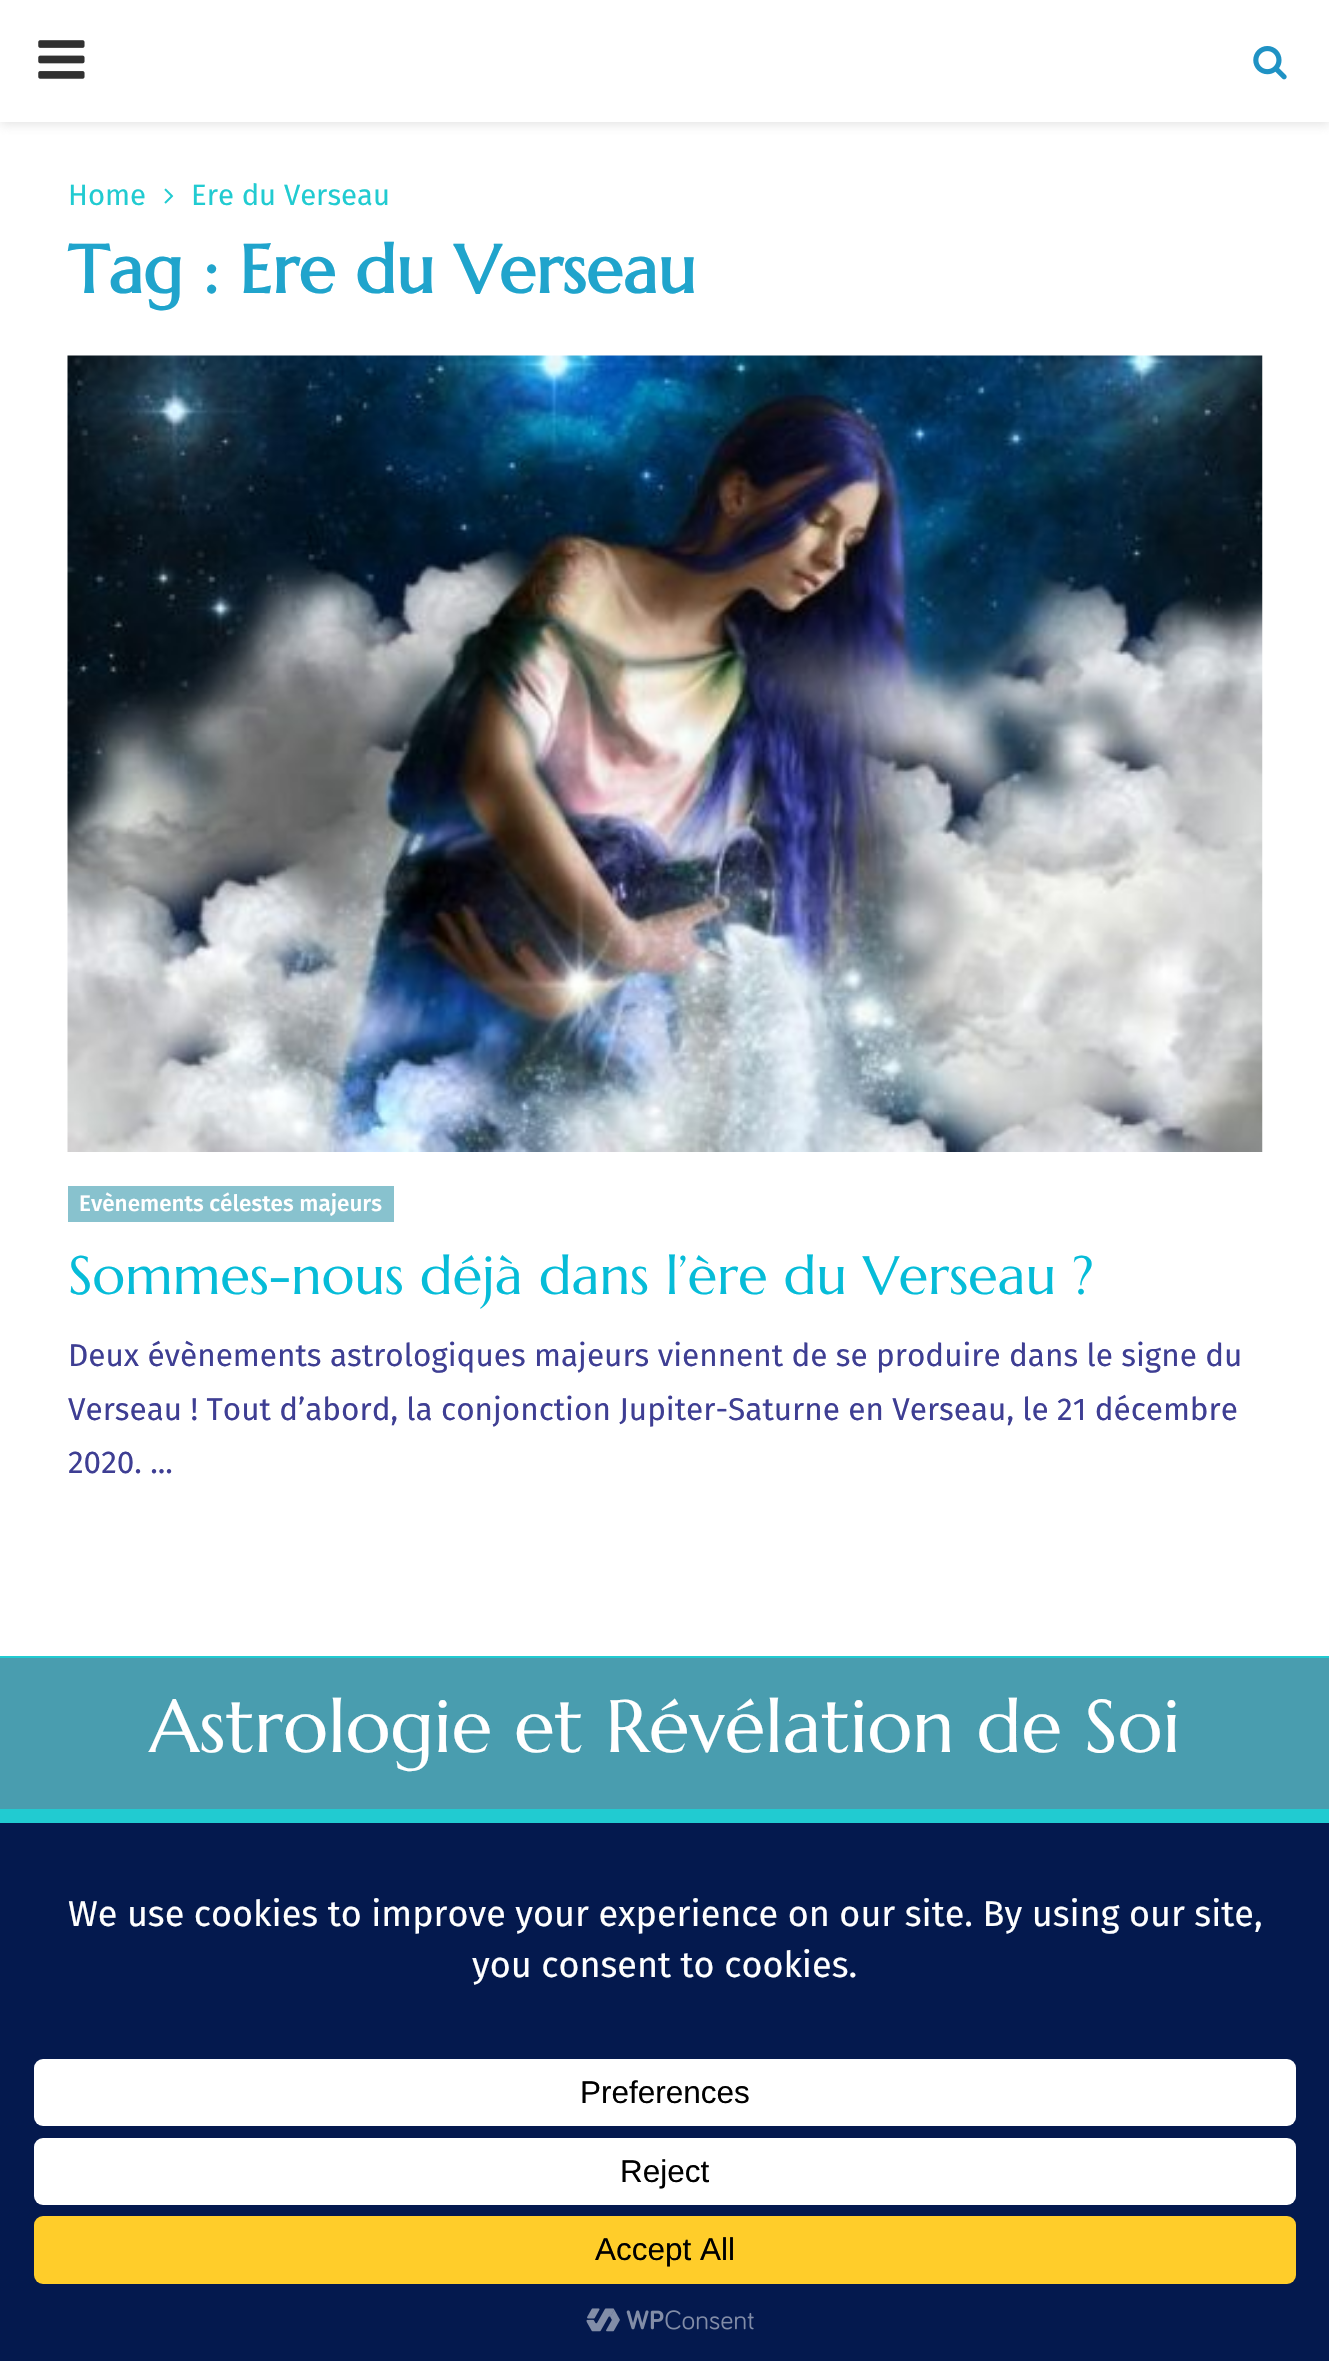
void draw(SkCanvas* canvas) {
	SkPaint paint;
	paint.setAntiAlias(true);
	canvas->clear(0xffffffff);
	paint.setColor(0x75bebebe);
	paint.setMaskFilter(SkMaskFilter::MakeBlur(kNormal_SkBlurStyle, 5.5));
	canvas->drawRect(SkRect::MakeXYWH(0, 2, 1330, 122), paint);
	paint.setMaskFilter(nullptr);
	paint.setColor(0xffffffff);
	canvas->drawRect(SkRect::MakeXYWH(0, 0, 1329, 122), paint);
	canvas->drawImageRect(SkImages::DeferredFromEncodedData(SkData::MakeFromFileName("img1.png")), SkRect::MakeXYWH(38, 40, 47, 39), SkSamplingOptions());
	canvas->drawImageRect(SkImages::DeferredFromEncodedData(SkData::MakeFromFileName("img2.png")), SkRect::MakeXYWH(1253, 46, 34, 34), SkSamplingOptions());
	SkFont f1(fontMgr->matchFamilyStyle("Fira Sans", SkFontStyle::Normal()), 29.25);
	f1.setSubpixel(true);
	paint.setColor(0xff21cbd1);
	canvas->drawString("Home", 68, 205, f1, paint);
	canvas->drawImageRect(SkImages::DeferredFromEncodedData(SkData::MakeFromFileName("img3.png")), SkRect::MakeXYWH(164, 188, 10, 16), SkSamplingOptions());
	canvas->drawString("Ere du Verseau", 191, 205, f1, paint);
	SkFont f2(fontMgr->matchFamilyStyle("Marcellus", SkFontStyle::Bold()), 67.5);
	f2.setSubpixel(true);
	paint.setColor(0xff20a4cc);
	canvas->drawString("Tag : Ere du Verseau", 68, 293, f2, paint);
	canvas->drawImageRect(SkImages::DeferredFromEncodedData(SkData::MakeFromFileName("img4.png")), SkRect::MakeXYWH(67, 355, 1196, 797), SkSamplingOptions());
	paint.setColor(0xff88c2ce);
	canvas->drawRect(SkRect::MakeXYWH(68, 1186, 326, 36), paint);
	SkFont f3(fontMgr->matchFamilyStyle("Fira Sans", SkFontStyle(500, SkFontStyle::kNormal_Width, SkFontStyle::kUpright_Slant)), 22.5);
	f3.setSubpixel(true);
	paint.setColor(0xffffffff);
	canvas->drawString("Evènements célestes majeurs", 79, 1211, f3, paint);
	SkFont f4(fontMgr->matchFamilyStyle("Marcellus", SkFontStyle::Normal()), 54);
	f4.setSubpixel(true);
	paint.setColor(0xff06bcd8);
	canvas->drawString("Sommes-nous déjà dans l’ère du Verseau ?", 68, 1294, f4, paint);
	SkFont f5(fontMgr->matchFamilyStyle("Fira Sans", SkFontStyle::Normal()), 31.5);
	f5.setSubpixel(true);
	paint.setColor(0xff3e3e93);
	canvas->drawString("Deux évènements astrologiques majeurs viennent de se produire dans le signe du", 68, 1366, f5, paint);
	canvas->drawString("Verseau ! Tout d’abord, la conjonction Jupiter-Saturne en Verseau, le 21 décembre", 68, 1420, f5, paint);
	canvas->drawString("2020. ...", 68, 1473, f5, paint);
	paint.setColor(0xff499daf);
	canvas->drawRect(SkRect::MakeXYWH(0, 1658, 1329, 151), paint);
	paint.setColor(0xff21cbd1);
	canvas->drawRect(SkRect::MakeXYWH(0, 1656, 1329, 2), paint);
	SkFont f6(fontMgr->matchFamilyStyle("Marcellus", SkFontStyle::Normal()), 74.25);
	f6.setSubpixel(true);
	paint.setColor(0xffffffff);
	canvas->drawString("Astrologie et Révélation de Soi", 149, 1752, f6, paint);
	paint.setColor(0xff21cbd1);
	canvas->drawRect(SkRect::MakeXYWH(0, 1809, 1329, 14), paint);
	paint.setColor(0xff04194e);
	canvas->drawRect(SkRect::MakeXYWH(0, 1823, 1329, 538), paint);
	SkFont f7(fontMgr->matchFamilyStyle("Fira Sans", SkFontStyle::Normal()), 36);
	f7.setSubpixel(true);
	paint.setColor(0xffffffff);
	canvas->drawString("We use cookies to improve your experience on our site. By using our site,", 68, 1926, f7, paint);
	canvas->drawString("you consent to cookies.", 472, 1977, f7, paint);
	canvas->drawRoundRect(SkRect::MakeXYWH(34, 2059, 1262, 67), 9, 9, paint);
	SkFont f8(fontMgr->matchFamilyStyle("Liberation Sans", SkFontStyle::Normal()), 31.5);
	f8.setSubpixel(true);
	paint.setColor(0xff000000);
	canvas->drawString("Preferences", 580, 2103, f8, paint);
	paint.setColor(0xffffffff);
	canvas->drawRoundRect(SkRect::MakeXYWH(34, 2138, 1262, 67), 9, 9, paint);
	paint.setColor(0xff000000);
	canvas->drawString("Reject", 620, 2182, f8, paint);
	paint.setColor(0xffffcd2a);
	canvas->drawRoundRect(SkRect::MakeXYWH(34, 2216, 1262, 68), 9, 9, paint);
	paint.setColor(0xff000000);
	canvas->drawString("Accept All", 595, 2260, f8, paint);
	canvas->drawImageRect(SkImages::DeferredFromEncodedData(SkData::MakeFromFileName("img5.png")), SkRect::MakeXYWH(586, 2308, 168, 24), SkSamplingOptions());
}
